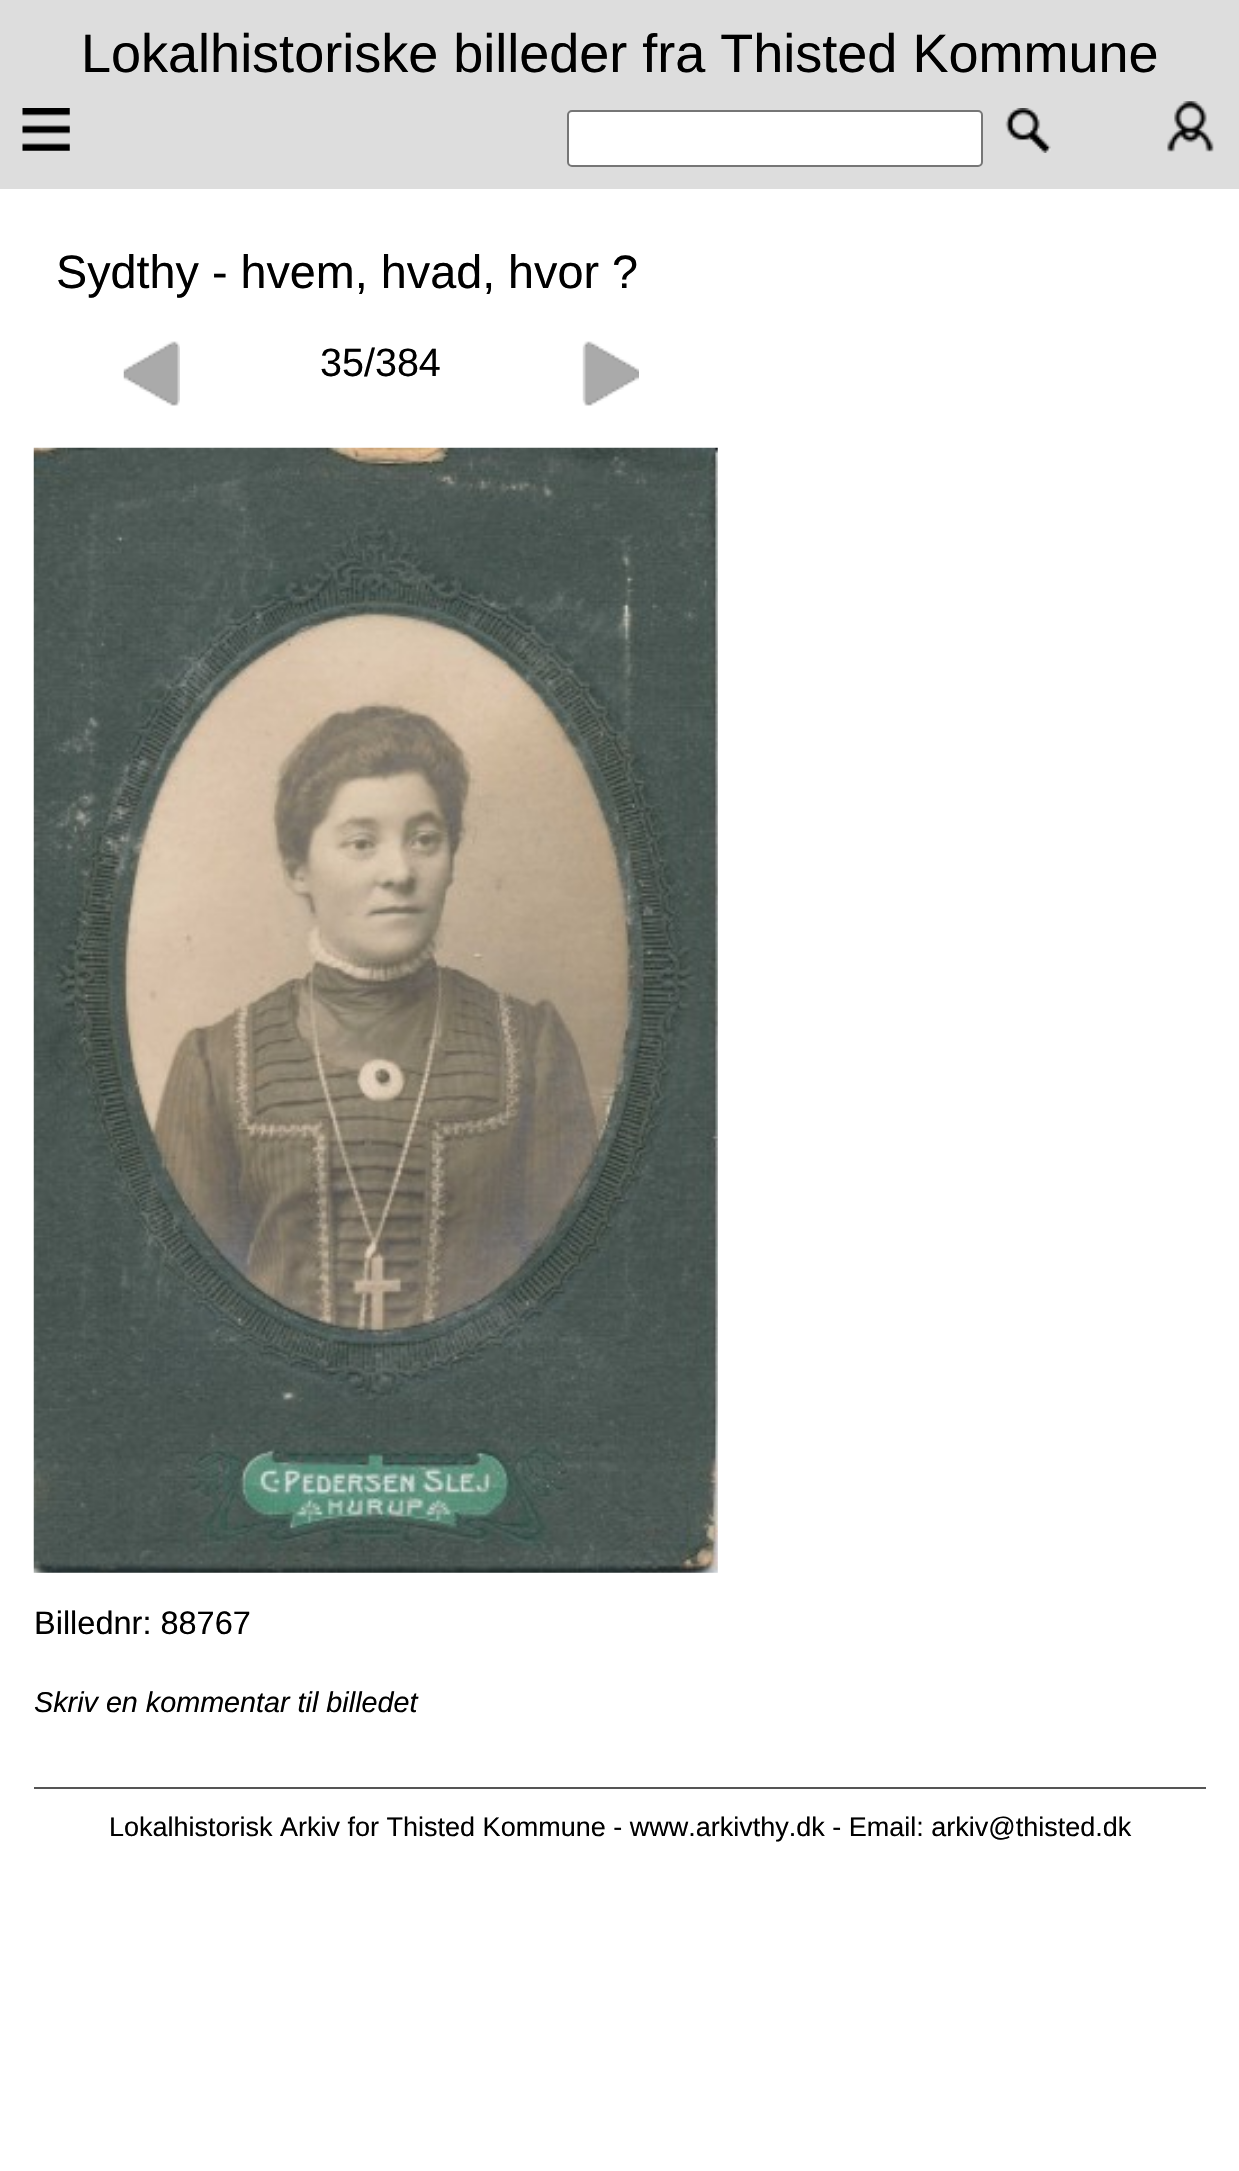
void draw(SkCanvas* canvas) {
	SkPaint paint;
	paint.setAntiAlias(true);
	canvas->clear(0xffffffff);
	paint.setColor(0xffdddddd);
	canvas->drawRect(SkRect::MakeXYWH(0, 0, 1239, 189), paint);
	SkFont f1(fontMgr->matchFamilyStyle("Liberation Sans", SkFontStyle::Normal()), 54);
	f1.setSubpixel(true);
	paint.setColor(0xff000000);
	canvas->drawString("Lokalhistoriske billeder fra Thisted Kommune", 81, 72, f1, paint);
	canvas->drawImageRect(SkImages::DeferredFromEncodedData(SkData::MakeFromFileName("img1.png")), SkRect::MakeXYWH(22, 108, 48, 43), SkSamplingOptions());
	paint.setColor(0xffffffff);
	canvas->drawRoundRect(SkRect::MakeXYWH(568, 111, 414, 55), 4, 4, paint);
	paint.setStroke(true);
	paint.setStrokeWidth(2);
	paint.setColor(0xff767676);
	canvas->drawRoundRect(SkRect::MakeXYWH(568, 111, 414, 55), 4, 4, paint);
	canvas->drawImageRect(SkImages::DeferredFromEncodedData(SkData::MakeFromFileName("img2.png")), SkRect::MakeXYWH(1005, 108, 46, 45), SkSamplingOptions());
	canvas->drawImageRect(SkImages::DeferredFromEncodedData(SkData::MakeFromFileName("img3.png")), SkRect::MakeXYWH(1167, 101, 47, 51), SkSamplingOptions());
	SkFont f2(fontMgr->matchFamilyStyle("Liberation Sans", SkFontStyle::Normal()), 46.75);
	f2.setSubpixel(true);
	paint.setStroke(false);
	paint.setColor(0xff000000);
	canvas->drawString("Sydthy - hvem, hvad, hvor ?", 56, 288, f2, paint);
	canvas->drawImageRect(SkImages::DeferredFromEncodedData(SkData::MakeFromFileName("img4.png")), SkRect::MakeXYWH(123, 341, 57, 65), SkSamplingOptions());
	SkFont f3(fontMgr->matchFamilyStyle("Liberation Sans", SkFontStyle::Normal()), 39.5);
	f3.setSubpixel(true);
	canvas->drawString("35/384", 320, 376, f3, paint);
	canvas->drawImageRect(SkImages::DeferredFromEncodedData(SkData::MakeFromFileName("img5.png")), SkRect::MakeXYWH(582, 341, 57, 65), SkSamplingOptions());
	canvas->drawImageRect(SkImages::DeferredFromEncodedData(SkData::MakeFromFileName("img6.png")), SkRect::MakeXYWH(33, 447, 685, 1126), SkSamplingOptions());
	SkFont f4(fontMgr->matchFamilyStyle("Liberation Sans", SkFontStyle::Normal()), 32.5);
	f4.setSubpixel(true);
	canvas->drawString("Billednr: 88767", 34, 1634, f4, paint);
	SkFont f5(fontMgr->matchFamilyStyle("Liberation Sans", SkFontStyle::Italic()), 28.75);
	f5.setSubpixel(true);
	canvas->drawString("Skriv en kommentar til billedet", 34, 1712, f5, paint);
	paint.setColor(0xff555555);
	canvas->drawRect(SkRect::MakeXYWH(34, 1787, 1172, 2), paint);
	SkFont f6(fontMgr->matchFamilyStyle("Liberation Sans", SkFontStyle::Normal()), 27);
	f6.setSubpixel(true);
	paint.setColor(0xff000000);
	canvas->drawString("Lokalhistorisk Arkiv for Thisted Kommune - www.arkivthy.dk - Email: arkiv@thisted.dk", 109, 1836, f6, paint);
}
